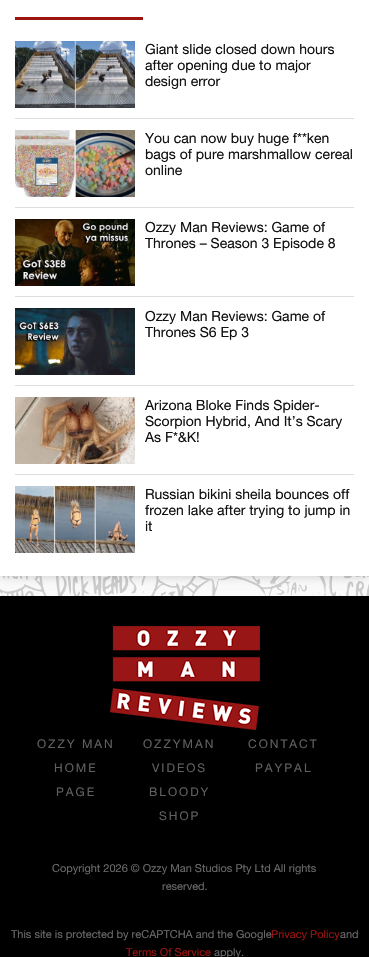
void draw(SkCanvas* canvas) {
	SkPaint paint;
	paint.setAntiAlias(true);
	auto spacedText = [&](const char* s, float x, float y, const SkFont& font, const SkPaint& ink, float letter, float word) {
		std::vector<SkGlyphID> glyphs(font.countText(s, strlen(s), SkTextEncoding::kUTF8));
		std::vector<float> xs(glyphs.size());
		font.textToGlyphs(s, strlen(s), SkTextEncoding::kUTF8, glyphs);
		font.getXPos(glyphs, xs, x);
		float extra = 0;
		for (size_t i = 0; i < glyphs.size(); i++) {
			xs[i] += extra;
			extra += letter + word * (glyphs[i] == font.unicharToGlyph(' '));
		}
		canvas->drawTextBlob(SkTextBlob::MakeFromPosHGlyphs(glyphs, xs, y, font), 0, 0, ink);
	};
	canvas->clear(0xfffafafa);
	canvas->drawImageRect(SkImages::DeferredFromEncodedData(SkData::MakeFromFileName("img1.png")), SkRect::MakeXYWH(0, 576, 369, 20), SkSamplingOptions());
	paint.setColor(0x33000000);
	paint.setMaskFilter(SkMaskFilter::MakeBlur(kNormal_SkBlurStyle, 5));
	canvas->drawRect(SkRect::MakeXYWH(0, -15, 369, 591), paint);
	paint.setMaskFilter(nullptr);
	paint.setColor(0xffffffff);
	canvas->drawRect(SkRect::MakeXYWH(0, 0, 369, 576), paint);
	paint.setColor(0xff9a1411);
	canvas->drawRect(SkRect::MakeXYWH(15, 17, 128, 3), paint);
	paint.setColor(0xffdddddd);
	canvas->drawRect(SkRect::MakeXYWH(15, 118, 339, 1), paint);
	canvas->drawImageRect(SkImages::DeferredFromEncodedData(SkData::MakeFromFileName("img2.png")), SkRect::MakeXYWH(15, 41, 120, 67), SkSamplingOptions());
	SkFont f1(fontMgr->matchFamilyStyle("Helvetica Neue", SkFontStyle::Normal()), 14);
	f1.setSubpixel(true);
	paint.setColor(0xff111111);
	canvas->drawString("Giant slide closed down hours", 145, 54, f1, paint);
	canvas->drawString("after opening due to major", 145, 70, f1, paint);
	canvas->drawString("design error", 145, 86, f1, paint);
	paint.setColor(0xffdddddd);
	canvas->drawRect(SkRect::MakeXYWH(15, 207, 339, 1), paint);
	canvas->drawImageRect(SkImages::DeferredFromEncodedData(SkData::MakeFromFileName("img3.png")), SkRect::MakeXYWH(15, 130, 120, 67), SkSamplingOptions());
	paint.setColor(0xff111111);
	canvas->drawString("You can now buy huge f**ken", 145, 143, f1, paint);
	canvas->drawString("bags of pure marshmallow cereal", 145, 159, f1, paint);
	canvas->drawString("online", 145, 175, f1, paint);
	paint.setColor(0xffdddddd);
	canvas->drawRect(SkRect::MakeXYWH(15, 296, 339, 1), paint);
	canvas->drawImageRect(SkImages::DeferredFromEncodedData(SkData::MakeFromFileName("img4.png")), SkRect::MakeXYWH(15, 219, 120, 67), SkSamplingOptions());
	paint.setColor(0xff111111);
	canvas->drawString("Ozzy Man Reviews: Game of", 145, 232, f1, paint);
	canvas->drawString("Thrones – Season 3 Episode 8", 145, 248, f1, paint);
	paint.setColor(0xffdddddd);
	canvas->drawRect(SkRect::MakeXYWH(15, 385, 339, 1), paint);
	canvas->drawImageRect(SkImages::DeferredFromEncodedData(SkData::MakeFromFileName("img5.png")), SkRect::MakeXYWH(15, 308, 120, 67), SkSamplingOptions());
	paint.setColor(0xff111111);
	canvas->drawString("Ozzy Man Reviews: Game of", 145, 321, f1, paint);
	canvas->drawString("Thrones S6 Ep 3", 145, 337, f1, paint);
	paint.setColor(0xffdddddd);
	canvas->drawRect(SkRect::MakeXYWH(15, 474, 339, 1), paint);
	canvas->drawImageRect(SkImages::DeferredFromEncodedData(SkData::MakeFromFileName("img6.png")), SkRect::MakeXYWH(15, 397, 120, 67), SkSamplingOptions());
	paint.setColor(0xff111111);
	canvas->drawString("Arizona Bloke Finds Spider-", 145, 410, f1, paint);
	canvas->drawString("Scorpion Hybrid, And It’s Scary", 145, 426, f1, paint);
	canvas->drawString("As F*&K!", 145, 442, f1, paint);
	canvas->drawImageRect(SkImages::DeferredFromEncodedData(SkData::MakeFromFileName("img7.png")), SkRect::MakeXYWH(15, 486, 120, 67), SkSamplingOptions());
	canvas->drawString("Russian bikini sheila bounces off", 145, 499, f1, paint);
	canvas->drawString("frozen lake after trying to jump in", 145, 515, f1, paint);
	canvas->drawString("it", 145, 531, f1, paint);
	paint.setColor(0xff000000);
	canvas->drawRect(SkRect::MakeXYWH(0, 596, 369, 361), paint);
	canvas->drawImageRect(SkImages::DeferredFromEncodedData(SkData::MakeFromFileName("img8.png")), SkRect::MakeXYWH(110, 626, 150, 104), SkSamplingOptions());
	SkFont f2(fontMgr->matchFamilyStyle("Helvetica Neue", SkFontStyle::Normal()), 12);
	f2.setSubpixel(true);
	paint.setColor(0xff606060);
	spacedText("OZZY MAN", 37, 748, f2, paint, 2, 0);
	spacedText("HOME", 54, 772, f2, paint, 2, 0);
	spacedText("PAGE", 56, 796, f2, paint, 2, 0);
	spacedText("OZZYMAN", 143, 748, f2, paint, 2, 0);
	spacedText("VIDEOS", 152, 772, f2, paint, 2, 0);
	spacedText("CONTACT", 248, 748, f2, paint, 2, 0);
	spacedText("PAYPAL", 255, 772, f2, paint, 2, 0);
	spacedText("BLOODY", 149, 796, f2, paint, 2, 0);
	spacedText("SHOP", 159, 820, f2, paint, 2, 0);
	SkFont f3(fontMgr->matchFamilyStyle("Helvetica Neue", SkFontStyle::Normal()), 11);
	f3.setSubpixel(true);
	paint.setColor(0xff6a6a6a);
	canvas->drawString("Copyright 2026 © Ozzy Man Studios Pty Ltd All rights", 52, 872, f3, paint);
	canvas->drawString("reserved.", 162, 890, f3, paint);
	canvas->drawString("This site is protected by reCAPTCHA and the Google", 11, 938, f3, paint);
	paint.setColor(0xff9a1411);
	canvas->drawString("Privacy Policy", 271, 938, f3, paint);
	paint.setColor(0xff6a6a6a);
	canvas->drawString("and", 340, 938, f3, paint);
	paint.setColor(0xff9a1411);
	canvas->drawString("Terms Of Service", 126, 956, f3, paint);
	paint.setColor(0xff6a6a6a);
	canvas->drawString("apply.", 214, 956, f3, paint);
}
